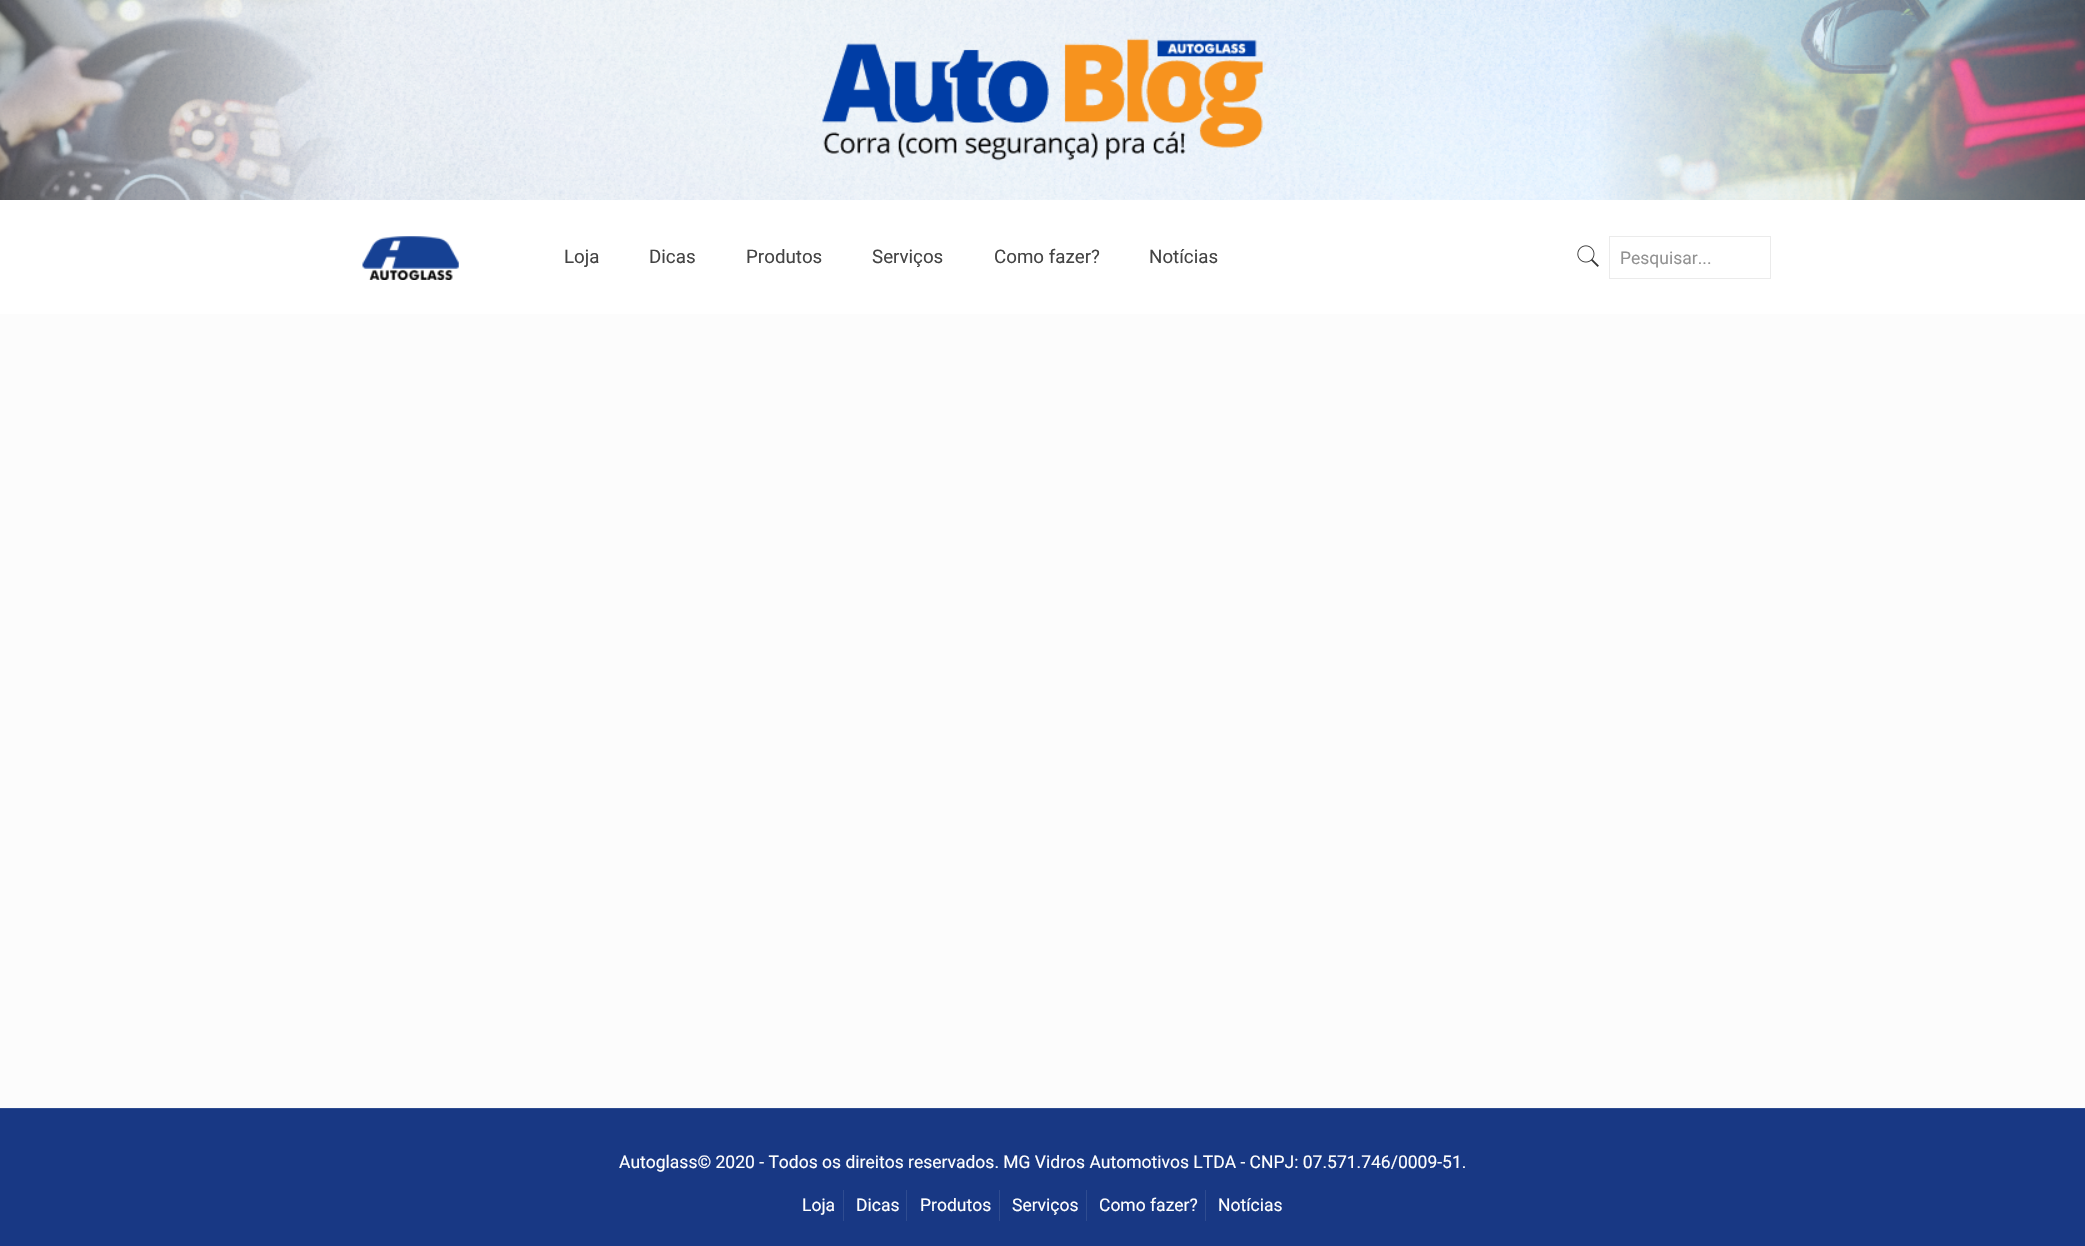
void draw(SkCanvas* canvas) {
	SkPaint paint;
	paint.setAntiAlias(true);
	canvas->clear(0xfffcfcfc);
	paint.setColor(0xffffffff);
	canvas->drawRect(SkRect::MakeXYWH(0, 200, 2085, 114), paint);
	canvas->drawImageRect(SkImages::DeferredFromEncodedData(SkData::MakeFromFileName("img1.png")), SkRect::MakeXYWH(0, 0, 2085, 200), SkSamplingOptions());
	canvas->drawImageRect(SkImages::DeferredFromEncodedData(SkData::MakeFromFileName("img2.png")), SkRect::MakeXYWH(362, 236, 97, 44), SkSamplingOptions());
	SkFont f1(fontMgr->matchFamilyStyle("Roboto", SkFontStyle::Normal()), 18.75);
	f1.setSubpixel(true);
	paint.setColor(0xff444444);
	canvas->drawString("Loja", 564, 263, f1, paint);
	canvas->drawString("Dicas", 649, 263, f1, paint);
	canvas->drawString("Produtos", 746, 263, f1, paint);
	canvas->drawString("Serviços", 872, 263, f1, paint);
	canvas->drawString("Como fazer?", 994, 263, f1, paint);
	canvas->drawString("Notícias", 1149, 263, f1, paint);
	canvas->drawImageRect(SkImages::DeferredFromEncodedData(SkData::MakeFromFileName("img3.png")), SkRect::MakeXYWH(1577, 245, 22, 22), SkSamplingOptions());
	paint.setStroke(true);
	paint.setStrokeWidth(1);
	paint.setColor(0xffebebeb);
	canvas->drawRect(SkRect::MakeXYWH(1609.5, 236.5, 161, 42), paint);
	SkFont f2(fontMgr->matchFamilyStyle("Roboto", SkFontStyle::Normal()), 17.5);
	f2.setSubpixel(true);
	paint.setStroke(false);
	paint.setColor(0xff929292);
	canvas->drawString("Pesquisar...", 1620, 264, f2, paint);
	paint.setColor(0xff183884);
	canvas->drawRect(SkRect::MakeXYWH(0, 1109, 2085, 137), paint);
	paint.setColor(0xff2f4c90);
	canvas->drawRect(SkRect::MakeXYWH(0, 1108, 2085, 1), paint);
	paint.setColor(0xffffffff);
	canvas->drawString("Autoglass© 2020 - Todos os direitos reservados. MG Vidros Automotivos LTDA - CNPJ: 07.571.746/0009-51.", 619, 1168, f2, paint);
	paint.setColor(0xff2f4c90);
	canvas->drawRect(SkRect::MakeXYWH(843, 1190, 1, 31), paint);
	paint.setColor(0xffffffff);
	canvas->drawString("Loja", 802, 1211, f2, paint);
	paint.setColor(0xff2f4c90);
	canvas->drawRect(SkRect::MakeXYWH(906, 1190, 1, 31), paint);
	paint.setColor(0xffffffff);
	canvas->drawString("Dicas", 856, 1211, f2, paint);
	paint.setColor(0xff2f4c90);
	canvas->drawRect(SkRect::MakeXYWH(999, 1190, 1, 31), paint);
	paint.setColor(0xffffffff);
	canvas->drawString("Produtos", 920, 1211, f2, paint);
	paint.setColor(0xff2f4c90);
	canvas->drawRect(SkRect::MakeXYWH(1086, 1190, 1, 31), paint);
	paint.setColor(0xffffffff);
	canvas->drawString("Serviços", 1012, 1211, f2, paint);
	paint.setColor(0xff2f4c90);
	canvas->drawRect(SkRect::MakeXYWH(1205, 1190, 1, 31), paint);
	paint.setColor(0xffffffff);
	canvas->drawString("Como fazer?", 1099, 1211, f2, paint);
	canvas->drawString("Notícias", 1218, 1211, f2, paint);
}
